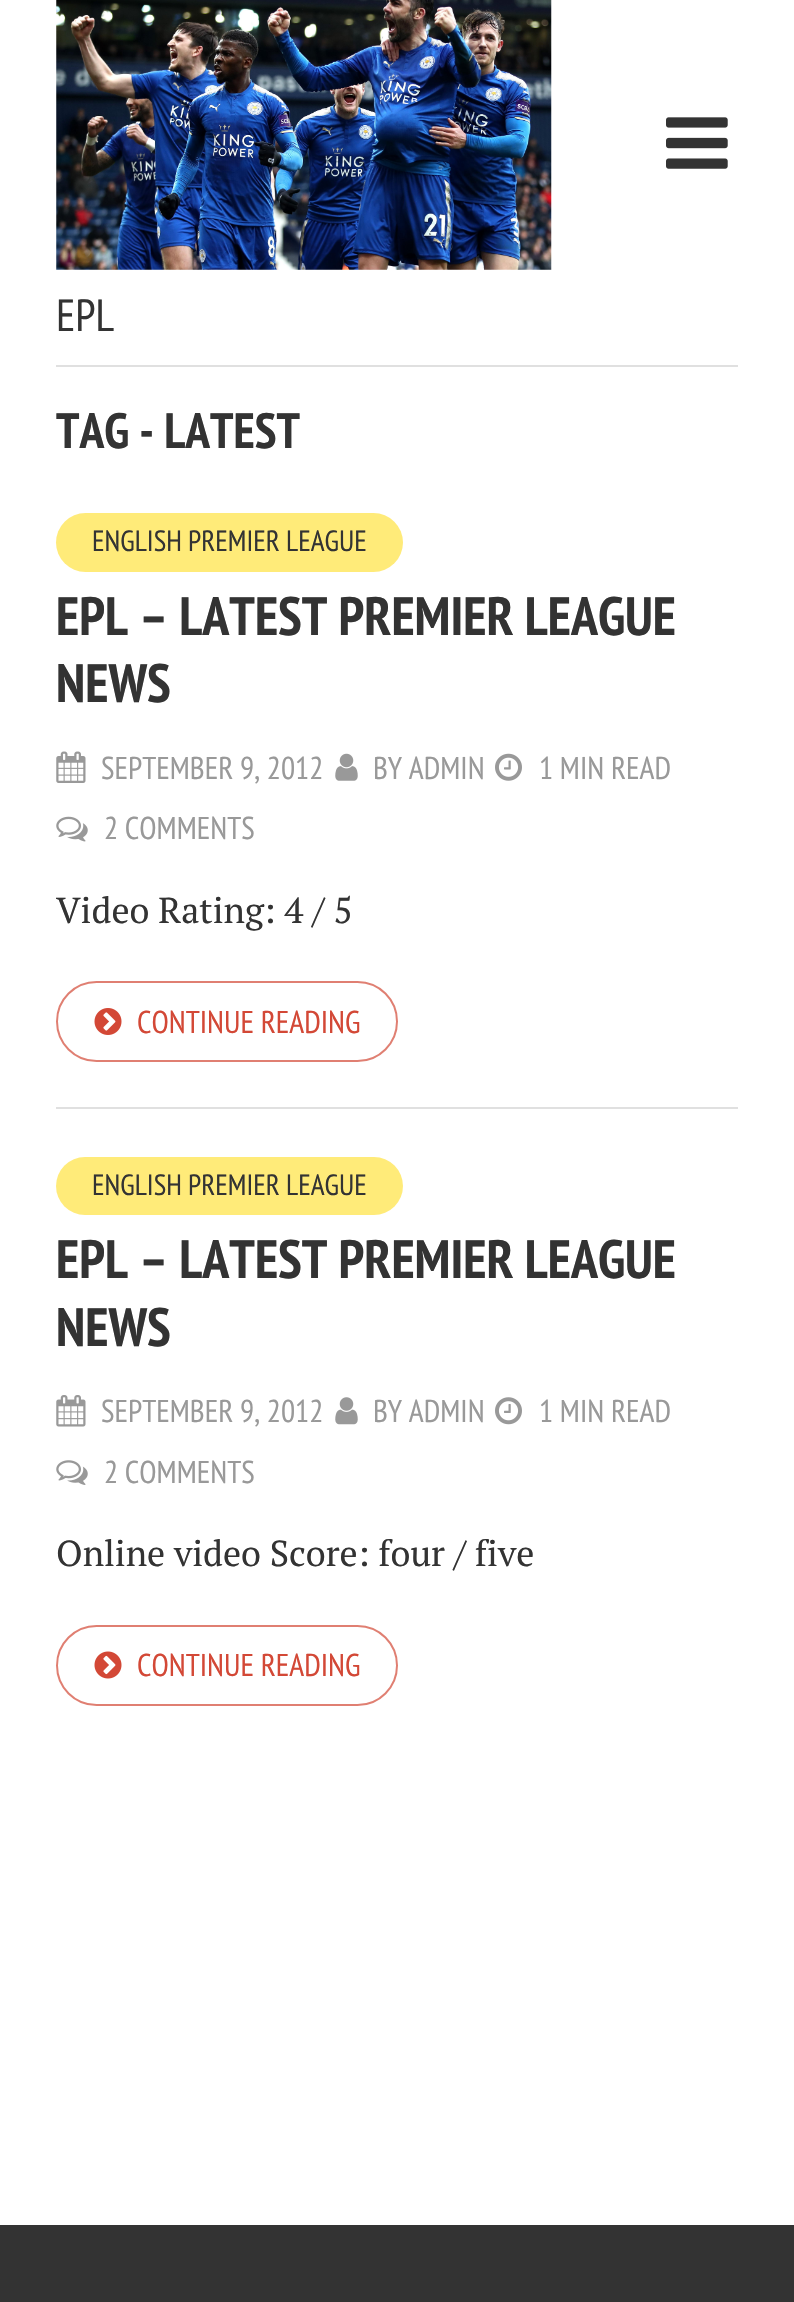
void draw(SkCanvas* canvas) {
	SkPaint paint;
	paint.setAntiAlias(true);
	canvas->clear(0xffffffff);
	canvas->drawImageRect(SkImages::DeferredFromEncodedData(SkData::MakeFromFileName("img1.png")), SkRect::MakeXYWH(666, 117, 62, 52), SkSamplingOptions());
	canvas->drawImageRect(SkImages::DeferredFromEncodedData(SkData::MakeFromFileName("img2.png")), SkRect::MakeXYWH(56, 0, 496, 270), SkSamplingOptions());
	SkFont f1(fontMgr->matchFamilyStyle("PT Sans Narrow", SkFontStyle::Normal()), 45);
	f1.setSubpixel(true);
	paint.setColor(0xff333333);
	canvas->drawString("EPL", 56, 331, f1, paint);
	paint.setColor(0xffe0e0e0);
	canvas->drawRect(SkRect::MakeXYWH(56, 365, 682, 2), paint);
	SkFont f2(fontMgr->matchFamilyStyle("PT Sans Narrow", SkFontStyle::Bold()), 49.5);
	f2.setSubpixel(true);
	paint.setColor(0xff333333);
	canvas->drawString("TAG - LATEST", 56, 448, f2, paint);
	paint.setColor(0xffe0e0e0);
	canvas->drawRect(SkRect::MakeXYWH(56, 1107, 682, 2), paint);
	paint.setColor(0xffffeb79);
	canvas->drawRoundRect(SkRect::MakeXYWH(56, 513, 347, 59), 29.5, 29.5, paint);
	SkFont f3(fontMgr->matchFamilyStyle("PT Sans Narrow", SkFontStyle::Normal()), 29.25);
	f3.setSubpixel(true);
	paint.setColor(0xff333333);
	canvas->drawString("ENGLISH PREMIER LEAGUE", 92, 551, f3, paint);
	SkFont f4(fontMgr->matchFamilyStyle("PT Sans Narrow", SkFontStyle::Bold()), 54);
	f4.setSubpixel(true);
	canvas->drawString("EPL – LATEST PREMIER LEAGUE", 56, 635, f4, paint);
	canvas->drawString("NEWS", 56, 702, f4, paint);
	canvas->drawImageRect(SkImages::DeferredFromEncodedData(SkData::MakeFromFileName("img3.png")), SkRect::MakeXYWH(56, 751, 30, 32), SkSamplingOptions());
	SkFont f5(fontMgr->matchFamilyStyle("PT Sans Narrow", SkFontStyle::Normal()), 31.5);
	f5.setSubpixel(true);
	paint.setColor(0xff999999);
	canvas->drawString("SEPTEMBER 9, 2012", 101, 779, f5, paint);
	canvas->drawImageRect(SkImages::DeferredFromEncodedData(SkData::MakeFromFileName("img4.png")), SkRect::MakeXYWH(335, 753, 23, 28), SkSamplingOptions());
	canvas->drawString("BY ADMIN", 373, 779, f5, paint);
	canvas->drawImageRect(SkImages::DeferredFromEncodedData(SkData::MakeFromFileName("img5.png")), SkRect::MakeXYWH(495, 753, 27, 28), SkSamplingOptions());
	canvas->drawString("1 MIN READ", 539, 779, f5, paint);
	canvas->drawImageRect(SkImages::DeferredFromEncodedData(SkData::MakeFromFileName("img6.png")), SkRect::MakeXYWH(56, 816, 32, 26), SkSamplingOptions());
	canvas->drawString("2 COMMENTS", 104, 839, f5, paint);
	SkFont f6(fontMgr->matchFamilyStyle("PT Serif", SkFontStyle::Normal()), 36);
	f6.setSubpixel(true);
	paint.setColor(0xff333333);
	canvas->drawString("Video Rating: 4 / 5", 56, 923, f6, paint);
	paint.setStroke(true);
	paint.setStrokeWidth(2);
	paint.setColor(0xffe07f72);
	canvas->drawRoundRect(SkRect::MakeXYWH(57, 982, 340, 79), 39.5, 39.5, paint);
	canvas->drawImageRect(SkImages::DeferredFromEncodedData(SkData::MakeFromFileName("img7.png")), SkRect::MakeXYWH(94, 1008, 28, 27), SkSamplingOptions());
	paint.setStroke(false);
	paint.setColor(0xffd34836);
	canvas->drawString("CONTINUE READING", 137, 1033, f5, paint);
	paint.setColor(0xffffeb79);
	canvas->drawRoundRect(SkRect::MakeXYWH(56, 1157, 347, 58), 29, 29, paint);
	paint.setColor(0xff333333);
	canvas->drawString("ENGLISH PREMIER LEAGUE", 92, 1195, f3, paint);
	canvas->drawString("EPL – LATEST PREMIER LEAGUE", 56, 1278, f4, paint);
	canvas->drawString("NEWS", 56, 1346, f4, paint);
	canvas->drawImageRect(SkImages::DeferredFromEncodedData(SkData::MakeFromFileName("img8.png")), SkRect::MakeXYWH(56, 1395, 30, 32), SkSamplingOptions());
	paint.setColor(0xff999999);
	canvas->drawString("SEPTEMBER 9, 2012", 101, 1422, f5, paint);
	canvas->drawImageRect(SkImages::DeferredFromEncodedData(SkData::MakeFromFileName("img9.png")), SkRect::MakeXYWH(335, 1397, 23, 28), SkSamplingOptions());
	canvas->drawString("BY ADMIN", 373, 1422, f5, paint);
	canvas->drawImageRect(SkImages::DeferredFromEncodedData(SkData::MakeFromFileName("img10.png")), SkRect::MakeXYWH(495, 1397, 27, 28), SkSamplingOptions());
	canvas->drawString("1 MIN READ", 539, 1422, f5, paint);
	canvas->drawImageRect(SkImages::DeferredFromEncodedData(SkData::MakeFromFileName("img11.png")), SkRect::MakeXYWH(56, 1460, 32, 25), SkSamplingOptions());
	canvas->drawString("2 COMMENTS", 104, 1483, f5, paint);
	paint.setColor(0xff333333);
	canvas->drawString("Online video Score: four / five", 56, 1566, f6, paint);
	paint.setStroke(true);
	paint.setColor(0xffe07f72);
	canvas->drawRoundRect(SkRect::MakeXYWH(57, 1626, 340, 79), 39.5, 39.5, paint);
	canvas->drawImageRect(SkImages::DeferredFromEncodedData(SkData::MakeFromFileName("img12.png")), SkRect::MakeXYWH(94, 1651, 28, 28), SkSamplingOptions());
	paint.setStroke(false);
	paint.setColor(0xffd34836);
	canvas->drawString("CONTINUE READING", 137, 1676, f5, paint);
	paint.setColor(0xff333333);
	canvas->drawRect(SkRect::MakeXYWH(0, 2225, 794, 77), paint);
}
